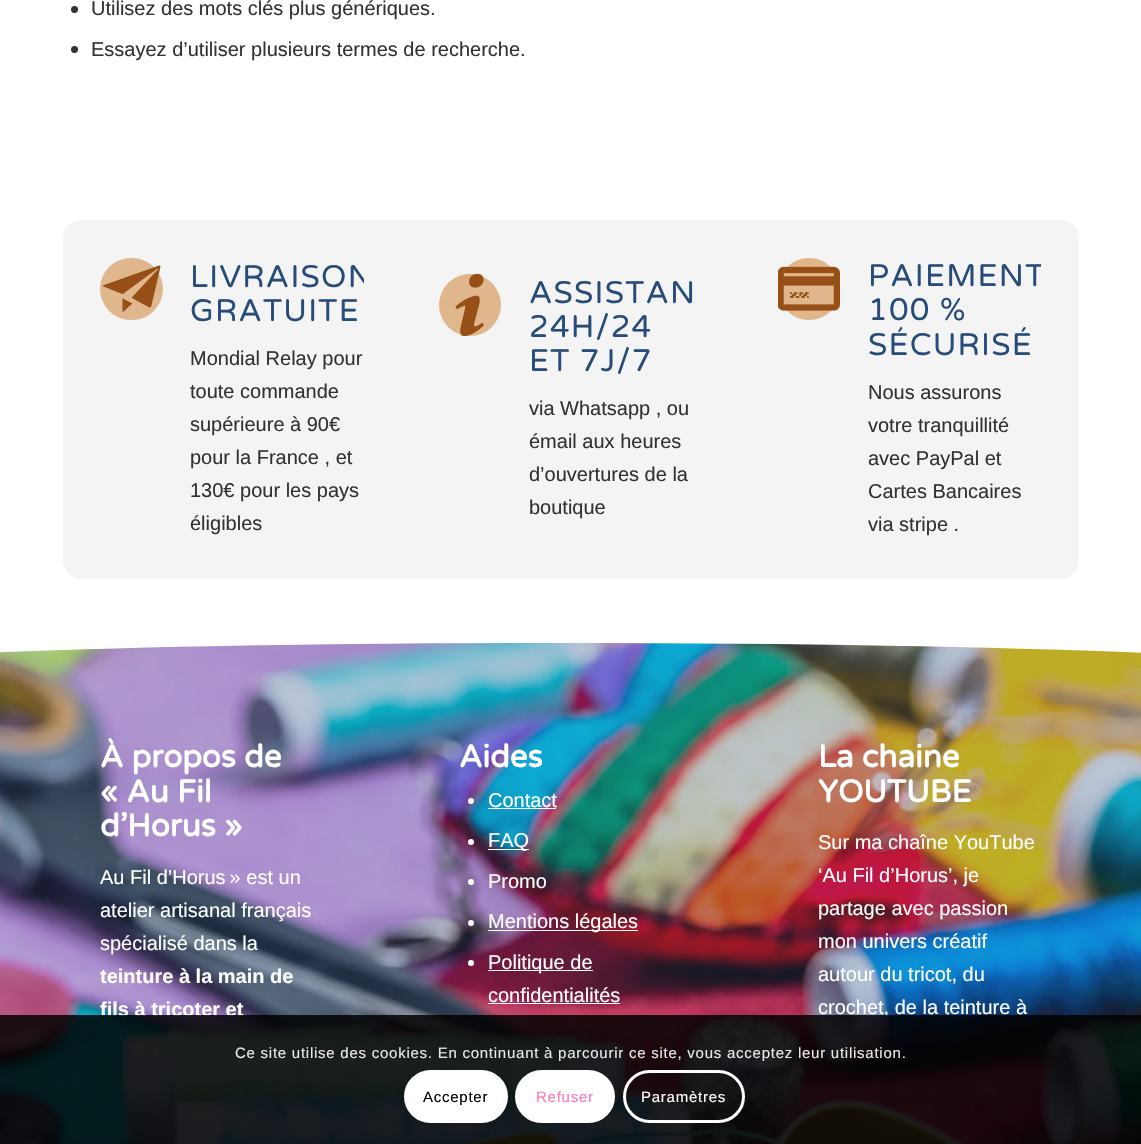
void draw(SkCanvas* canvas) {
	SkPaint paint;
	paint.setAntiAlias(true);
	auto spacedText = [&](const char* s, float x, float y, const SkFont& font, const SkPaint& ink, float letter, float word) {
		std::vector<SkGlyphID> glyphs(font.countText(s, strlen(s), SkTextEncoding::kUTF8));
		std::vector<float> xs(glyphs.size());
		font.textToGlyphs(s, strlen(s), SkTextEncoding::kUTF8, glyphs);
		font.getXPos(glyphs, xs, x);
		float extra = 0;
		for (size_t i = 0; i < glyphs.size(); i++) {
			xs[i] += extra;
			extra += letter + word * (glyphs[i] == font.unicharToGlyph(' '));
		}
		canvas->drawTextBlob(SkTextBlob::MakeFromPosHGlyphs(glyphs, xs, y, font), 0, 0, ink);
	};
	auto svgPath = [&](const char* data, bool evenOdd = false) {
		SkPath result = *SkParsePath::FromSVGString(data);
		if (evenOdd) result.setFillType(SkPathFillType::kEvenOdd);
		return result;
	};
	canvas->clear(0xffffffff);
	paint.setColor(0xff353131);
	canvas->drawCircle(74.5, 9.5, 3.5, paint);
	SkFont f1(fontMgr->matchFamilyStyle("Liberation Sans", SkFontStyle::Normal()), 20);
	f1.setSubpixel(true);
	canvas->drawString("Utilisez des mots clés plus génériques.", 91, 15, f1, paint);
	canvas->drawCircle(74.5, 49.5, 3.5, paint);
	canvas->drawString("Essayez d’utiliser plusieurs termes de recherche.", 91, 56, f1, paint);
	paint.setColor(0xfff4f4f4);
	canvas->drawPath(svgPath("M82 220H401V579H82C71.5 579 63 570.5 63 560V239C63 228.5 71.5 220 82 220Z"), paint);
	paint.setColor(0xffe0b68c);
	canvas->drawRoundRect(SkRect::MakeXYWH(100, 258, 63, 62), 31, 31, paint);
	canvas->drawImageRect(SkImages::DeferredFromEncodedData(SkData::MakeFromFileName("img1.png")), SkRect::MakeXYWH(103, 265, 58, 47), SkSamplingOptions());
	canvas->save();
	canvas->clipRect(SkRect::MakeXYWH(190, 258, 174, 282));
	SkFont f2(fontMgr->matchFamilyStyle("Varela Round", SkFontStyle::Normal()), 31.25);
	f2.setSubpixel(true);
	paint.setColor(0xff274c7a);
	spacedText("LIVRAISON", 190, 287, f2, paint, 1.25, 0);
	canvas->restore();
	spacedText("GRATUITE", 190, 321, f2, paint, 1.25, 0);
	paint.setColor(0xff353131);
	canvas->drawString("Mondial Relay pour", 190, 365, f1, paint);
	canvas->drawString("toute commande", 190, 398, f1, paint);
	canvas->drawString("supérieure à 90€", 190, 431, f1, paint);
	canvas->drawString("pour la France , et", 190, 464, f1, paint);
	canvas->drawString("130€ pour les pays", 190, 497, f1, paint);
	canvas->drawString("éligibles", 190, 530, f1, paint);
	paint.setColor(0xfff4f4f4);
	canvas->drawRect(SkRect::MakeXYWH(401, 220, 339, 359), paint);
	paint.setColor(0xffe0b68c);
	canvas->drawCircle(470, 305, 31, paint);
	canvas->drawImageRect(SkImages::DeferredFromEncodedData(SkData::MakeFromFileName("img2.png")), SkRect::MakeXYWH(455, 274, 29, 62), SkSamplingOptions());
	paint.setColor(0xff274c7a);
	spacedText("ASSISTAN", 529, 303, f2, paint, 1.25, 0);
	spacedText("24H/24", 529, 337, f2, paint, 1.25, 0);
	spacedText("ET 7J/7", 529, 371, f2, paint, 1.25, 0);
	paint.setColor(0xff353131);
	canvas->drawString("via Whatsapp , ou", 529, 415, f1, paint);
	canvas->drawString("émail aux heures", 529, 448, f1, paint);
	canvas->drawString("d’ouvertures de la", 529, 481, f1, paint);
	canvas->drawString("boutique", 529, 514, f1, paint);
	paint.setColor(0xfff4f4f4);
	canvas->drawPath(svgPath("M740 220H1060C1070.5 220 1079 228.5 1079 239V560C1079 570.5 1070.5 579 1060 579H740Z"), paint);
	paint.setColor(0xffe0b68c);
	canvas->drawCircle(809, 289, 31, paint);
	canvas->drawImageRect(SkImages::DeferredFromEncodedData(SkData::MakeFromFileName("img3.png")), SkRect::MakeXYWH(778, 266, 62, 45), SkSamplingOptions());
	canvas->save();
	canvas->clipRect(SkRect::MakeXYWH(868, 258, 173, 283));
	paint.setColor(0xff274c7a);
	spacedText("PAIEMENT", 868, 286, f2, paint, 1.25, 0);
	canvas->restore();
	spacedText("100 %", 868, 320, f2, paint, 1.25, 0);
	spacedText("SÉCURISÉ", 868, 355, f2, paint, 1.25, 0);
	paint.setColor(0xff353131);
	canvas->drawString("Nous assurons", 868, 399, f1, paint);
	canvas->drawString("votre tranquillité", 868, 432, f1, paint);
	canvas->drawString("avec PayPal et", 868, 465, f1, paint);
	canvas->drawString("Cartes Bancaires", 868, 498, f1, paint);
	canvas->drawString("via stripe .", 868, 531, f1, paint);
	canvas->drawImageRect(SkImages::DeferredFromEncodedData(SkData::MakeFromFileName("img4.png")), SkRect::MakeXYWH(0, 643, 1141, 501), SkSamplingOptions());
	paint.setColor(0xffffffff);
	canvas->drawPath(svgPath("M570 643C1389 643 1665 691 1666 704V641H-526V703C-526 691-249 642 570 643Z"), paint);
	SkFont f3(fontMgr->matchFamilyStyle("Varela Round", SkFontStyle::Bold()), 31.25);
	f3.setSubpixel(true);
	canvas->drawString("À propos de", 100, 767, f3, paint);
	canvas->drawString("« Au Fil", 100, 802, f3, paint);
	canvas->drawString("d’Horus »", 100, 836, f3, paint);
	canvas->drawString("Au Fil d’Horus » est un", 100, 884, f1, paint);
	canvas->drawString("atelier artisanal français", 100, 917, f1, paint);
	canvas->drawString("spécialisé dans la", 100, 950, f1, paint);
	SkFont f4(fontMgr->matchFamilyStyle("Liberation Sans", SkFontStyle::Bold()), 20);
	f4.setSubpixel(true);
	canvas->drawString("teinture à la main de", 100, 983, f4, paint);
	canvas->drawString("fils à tricoter et", 100, 1016, f4, paint);
	canvas->drawString("Aides", 459, 767, f3, paint);
	canvas->drawCircle(471, 801, 3, paint);
	canvas->drawString("Contact", 488, 807, f1, paint);
	canvas->drawRect(SkRect::MakeXYWH(488, 808, 68, 1), paint);
	canvas->drawCircle(471, 842, 3, paint);
	canvas->drawRect(SkRect::MakeXYWH(488, 849, 41, 1), paint);
	canvas->drawString("FAQ", 488, 847, f1, paint);
	canvas->drawCircle(471, 882, 3, paint);
	canvas->drawString("Promo", 488, 888, f1, paint);
	canvas->drawCircle(471, 923, 3, paint);
	canvas->drawRect(SkRect::MakeXYWH(488, 930, 150, 1), paint);
	canvas->drawString("Mentions légales", 488, 928, f1, paint);
	canvas->drawCircle(471, 963, 3, paint);
	canvas->drawRect(SkRect::MakeXYWH(488, 970, 105, 1), paint);
	canvas->drawString("Politique de", 488, 969, f1, paint);
	canvas->drawString("confidentialités", 488, 1002, f1, paint);
	canvas->drawRect(SkRect::MakeXYWH(488, 1003, 132, 1), paint);
	canvas->drawString("La chaine", 818, 767, f3, paint);
	canvas->drawString("YOUTUBE", 818, 802, f3, paint);
	canvas->drawString("Sur ma chaîne YouTube", 818, 849, f1, paint);
	canvas->drawString("‘Au Fil d’Horus’, je", 818, 882, f1, paint);
	canvas->drawString("partage avec passion", 818, 915, f1, paint);
	canvas->drawString("mon univers créatif", 818, 948, f1, paint);
	canvas->drawString("autour du tricot, du", 818, 981, f1, paint);
	canvas->drawString("crochet, de la teinture à", 818, 1014, f1, paint);
	paint.setColor(0xd9000000);
	canvas->drawRect(SkRect::MakeXYWH(0, 1015, 1141, 129), paint);
	SkFont f5(fontMgr->matchFamilyStyle("Liberation Sans", SkFontStyle::Normal()), 15);
	f5.setSubpixel(true);
	paint.setColor(0xffe8e8e8);
	spacedText("Ce site utilise des cookies. En continuant à parcourir ce site, vous acceptez leur utilisation.", 235, 1058, f5, paint, 0.75, 0);
	paint.setColor(0xffffffff);
	canvas->drawRoundRect(SkRect::MakeXYWH(404, 1070, 104, 53), 26.5, 26.5, paint);
	paint.setColor(0xff000000);
	spacedText("Accepter", 423, 1102, f5, paint, 0.75, 0);
	paint.setColor(0xffffffff);
	canvas->drawRoundRect(SkRect::MakeXYWH(516.5, 1071.5, 97, 50), 25, 25, paint);
	paint.setStroke(true);
	paint.setStrokeWidth(3);
	canvas->drawRoundRect(SkRect::MakeXYWH(516.5, 1071.5, 97, 50), 25, 25, paint);
	paint.setStroke(false);
	paint.setColor(0xffff75b5);
	spacedText("Refuser", 536, 1102, f5, paint, 0.75, 0);
	paint.setStroke(true);
	paint.setColor(0xffffffff);
	canvas->drawRoundRect(SkRect::MakeXYWH(624.5, 1071.5, 119, 50), 25, 25, paint);
	paint.setStroke(false);
	spacedText("Paramètres", 641, 1102, f5, paint, 0.75, 0);
}
